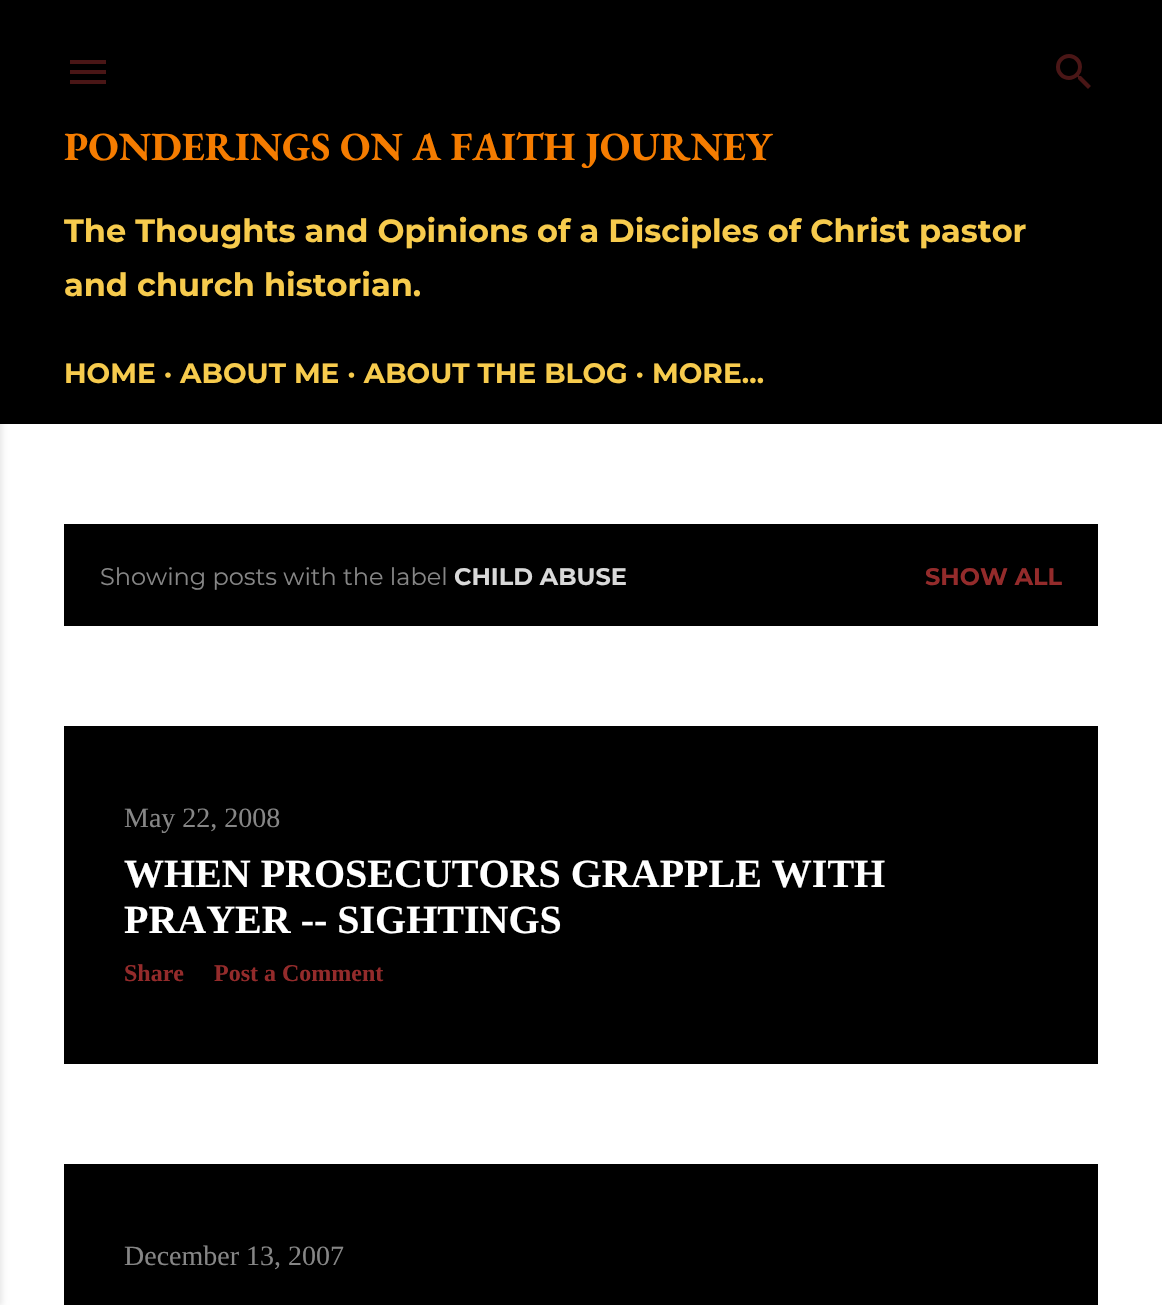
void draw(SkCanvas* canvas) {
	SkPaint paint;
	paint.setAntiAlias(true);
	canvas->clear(0xffffffff);
	paint.setColor(0xff000000);
	canvas->drawRect(SkRect::MakeXYWH(0, 0, 1162, 424), paint);
	paint.setColor(0x1a000000);
	paint.setMaskFilter(SkMaskFilter::MakeBlur(kNormal_SkBlurStyle, 3));
	canvas->drawRect(SkRect::MakeXYWH(-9, 0, 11, 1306), paint);
	paint.setMaskFilter(nullptr);
	canvas->drawImageRect(SkImages::DeferredFromEncodedData(SkData::MakeFromFileName("img1.png")), SkRect::MakeXYWH(70, 60, 36, 24), SkSamplingOptions());
	canvas->drawImageRect(SkImages::DeferredFromEncodedData(SkData::MakeFromFileName("img2.png")), SkRect::MakeXYWH(1056, 54, 35, 35), SkSamplingOptions());
	SkFont f1(fontMgr->matchFamilyStyle("EB Garamond", SkFontStyle::Bold()), 40);
	f1.setSubpixel(true);
	paint.setColor(0xfff57c00);
	canvas->drawString("PONDERINGS ON A FAITH JOURNEY", 64, 160, f1, paint);
	SkFont f2(fontMgr->matchFamilyStyle("Montserrat", SkFontStyle::Bold()), 32);
	f2.setSubpixel(true);
	paint.setColor(0xfff7cb4d);
	canvas->drawString("The Thoughts and Opinions of a Disciples of Christ pastor", 64, 242, f2, paint);
	canvas->drawString("and church historian.", 64, 296, f2, paint);
	SkFont f3(fontMgr->matchFamilyStyle("Montserrat", SkFontStyle::Bold()), 28);
	f3.setSubpixel(true);
	canvas->drawString("HOME · ABOUT ME · ABOUT THE BLOG · MORE…", 64, 383, f3, paint);
	paint.setColor(0xff000000);
	canvas->drawRect(SkRect::MakeXYWH(64, 524, 1034, 102), paint);
	SkFont f4(fontMgr->matchFamilyStyle("Montserrat", SkFontStyle::Normal()), 24);
	f4.setSubpixel(true);
	paint.setColor(0xff868686);
	canvas->drawString("Showing posts with the label", 100, 585, f4, paint);
	SkFont f5(fontMgr->matchFamilyStyle("Montserrat", SkFontStyle::Bold()), 24);
	f5.setSubpixel(true);
	paint.setColor(0xffd9d9d9);
	canvas->drawString("CHILD ABUSE", 454, 585, f5, paint);
	paint.setColor(0xff942b2b);
	canvas->drawString("SHOW ALL", 925, 585, f5, paint);
	paint.setColor(0xff000000);
	canvas->drawRect(SkRect::MakeXYWH(64, 726, 1034, 338), paint);
	SkFont f6(fontMgr->matchFamilyStyle("Liberation Serif", SkFontStyle::Normal()), 28);
	f6.setSubpixel(true);
	paint.setColor(0xff868686);
	canvas->drawString("May 22, 2008", 124, 827, f6, paint);
	SkFont f7(fontMgr->matchFamilyStyle("Liberation Serif", SkFontStyle::Bold()), 40);
	f7.setSubpixel(true);
	paint.setColor(0xffffffff);
	canvas->drawString("WHEN PROSECUTORS GRAPPLE WITH", 124, 887, f7, paint);
	canvas->drawString("PRAYER -- SIGHTINGS", 124, 933, f7, paint);
	SkFont f8(fontMgr->matchFamilyStyle("Liberation Serif", SkFontStyle::Bold()), 24);
	f8.setSubpixel(true);
	paint.setColor(0xff942b2b);
	canvas->drawString("Share", 124, 981, f8, paint);
	canvas->drawString("Post a Comment", 214, 981, f8, paint);
	paint.setColor(0xff000000);
	canvas->drawRect(SkRect::MakeXYWH(64, 1164, 1034, 141), paint);
	paint.setColor(0xff868686);
	canvas->drawString("December 13, 2007", 124, 1265, f6, paint);
}
